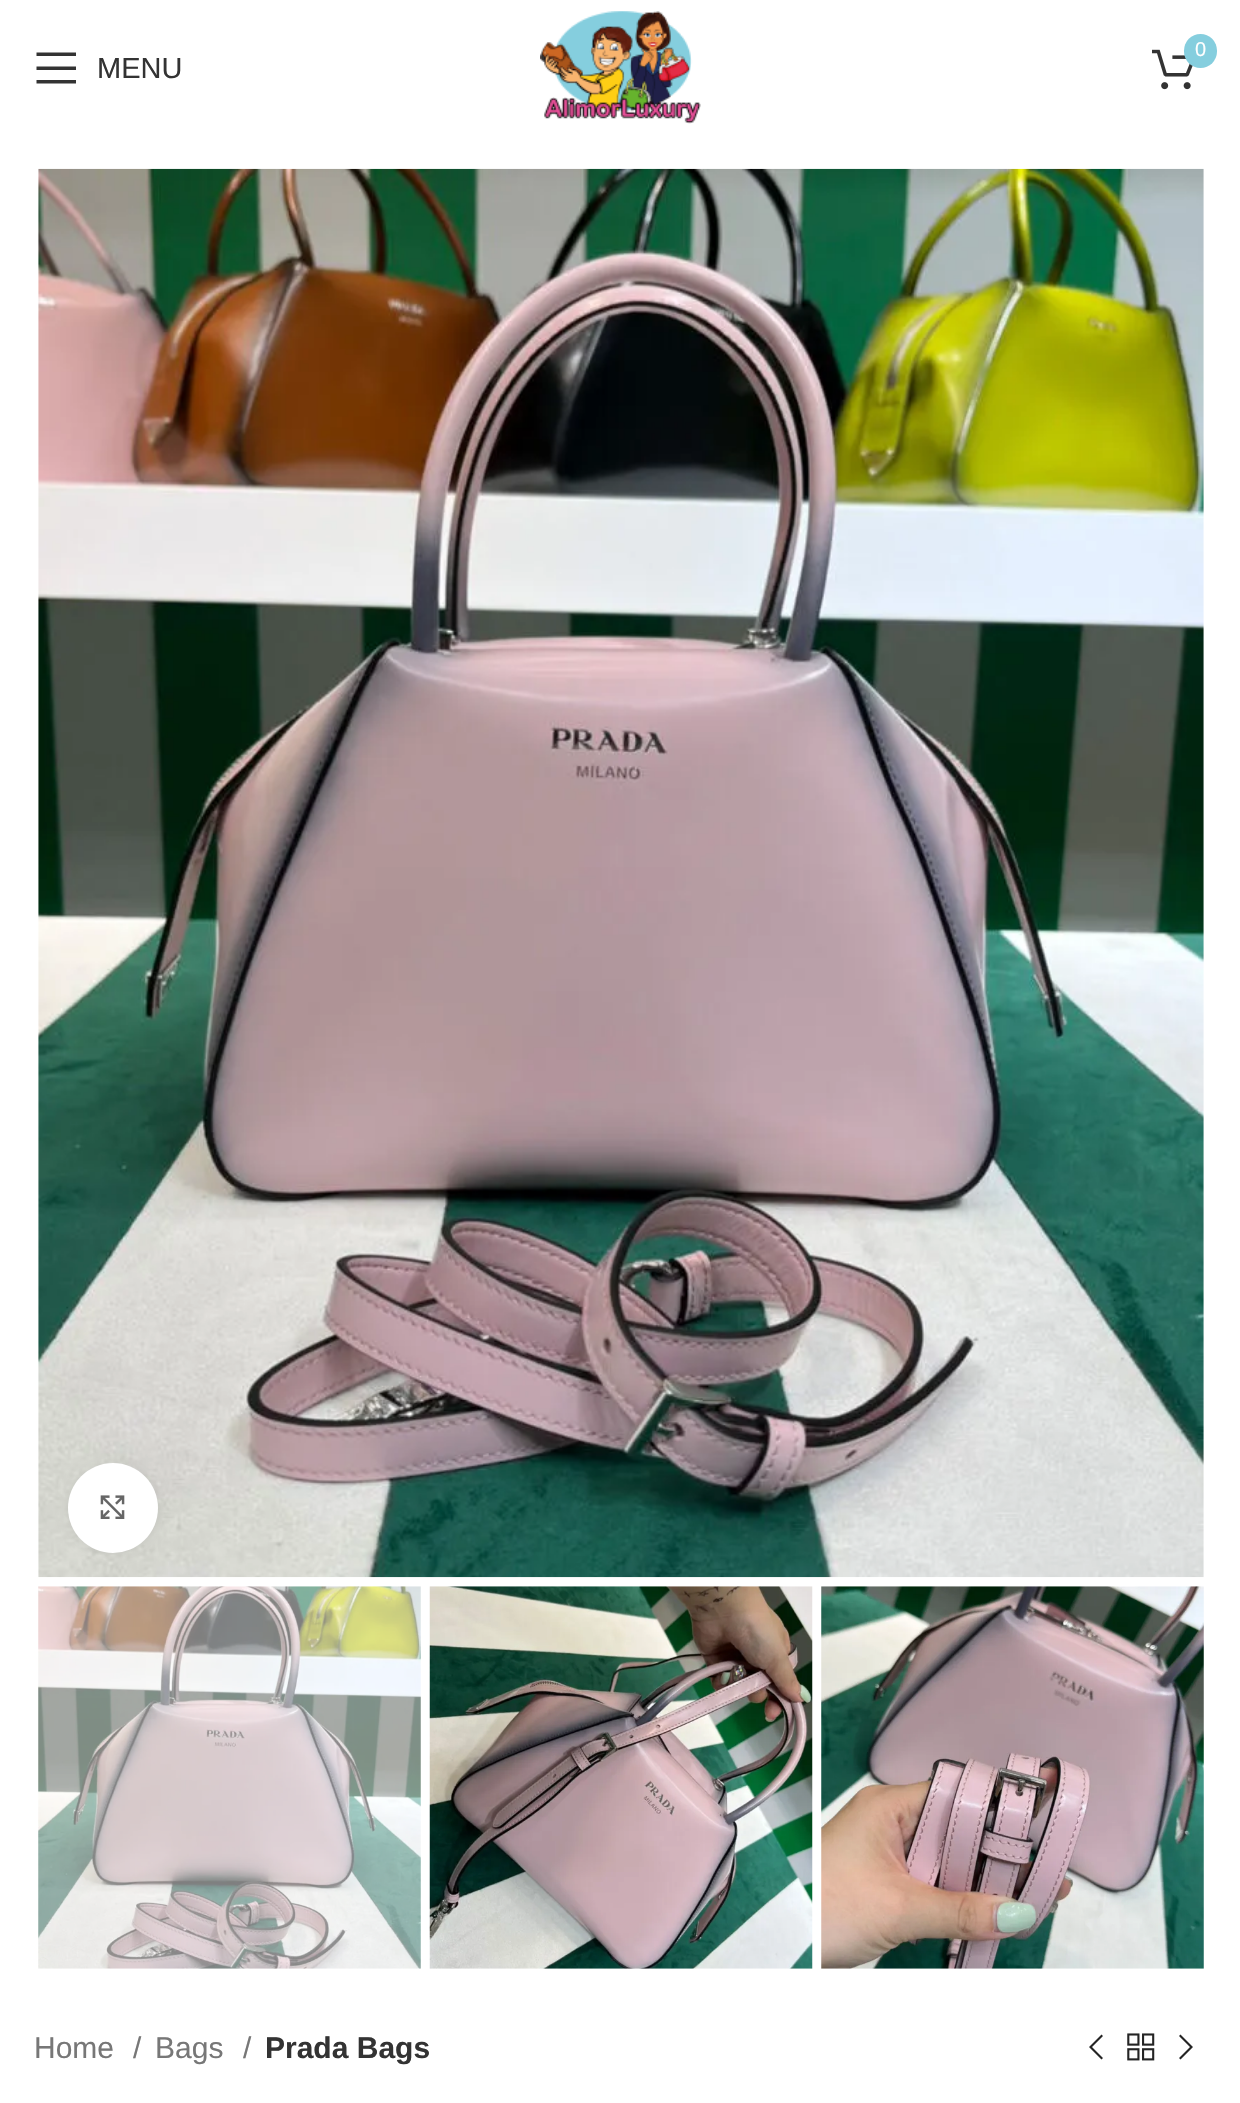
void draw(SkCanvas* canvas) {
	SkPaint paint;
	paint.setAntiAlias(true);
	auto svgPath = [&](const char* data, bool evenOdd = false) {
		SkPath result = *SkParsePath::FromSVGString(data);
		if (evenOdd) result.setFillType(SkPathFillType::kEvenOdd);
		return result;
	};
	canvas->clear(0xffffffff);
	canvas->drawImageRect(SkImages::DeferredFromEncodedData(SkData::MakeFromFileName("img1.png")), SkRect::MakeXYWH(540, 11, 161, 113), SkSamplingOptions());
	canvas->drawImageRect(SkImages::DeferredFromEncodedData(SkData::MakeFromFileName("img2.png")), SkRect::MakeXYWH(1152, 49, 41, 41), SkSamplingOptions());
	paint.setColor(0xff85cede);
	canvas->drawRoundRect(SkRect::MakeXYWH(1184, 34, 33, 34), 16.5, 16.5, paint);
	SkFont f1(fontMgr->matchFamilyStyle("Liberation Sans", SkFontStyle::Normal()), 20);
	f1.setSubpixel(true);
	paint.setColor(0xffffffff);
	canvas->drawString("0", 1195, 56, f1, paint);
	paint.setColor(0xff333333);
	canvas->drawPath(svgPath("M36.5 56H76V52.5H36.5ZM36.5 70H76V66.5H36.5ZM36.5 83.5H76V80H36.5Z"), paint);
	SkFont f2(fontMgr->matchFamilyStyle("Liberation Sans", SkFontStyle::Normal()), 29);
	f2.setSubpixel(true);
	canvas->drawString("MENU", 97, 78, f2, paint);
	canvas->drawImageRect(SkImages::DeferredFromEncodedData(SkData::MakeFromFileName("img3.png")), SkRect::MakeXYWH(38, 168, 1166, 1410), SkSamplingOptions());
	paint.setColor(0x14000000);
	paint.setMaskFilter(SkMaskFilter::MakeBlur(kNormal_SkBlurStyle, 5.5));
	canvas->drawRoundRect(SkRect::MakeXYWH(68, 1463, 90, 90), 45, 45, paint);
	paint.setMaskFilter(nullptr);
	paint.setColor(0xffffffff);
	canvas->drawCircle(113, 1508, 45, paint);
	canvas->drawImageRect(SkImages::DeferredFromEncodedData(SkData::MakeFromFileName("img4.png")), SkRect::MakeXYWH(100, 1495, 25, 24), SkSamplingOptions());
	canvas->drawImageRect(SkImages::DeferredFromEncodedData(SkData::MakeFromFileName("img5.png")), SkRect::MakeXYWH(38, 1586, 383, 383), SkSamplingOptions());
	canvas->drawImageRect(SkImages::DeferredFromEncodedData(SkData::MakeFromFileName("img6.png")), SkRect::MakeXYWH(429, 1586, 384, 383), SkSamplingOptions());
	canvas->drawImageRect(SkImages::DeferredFromEncodedData(SkData::MakeFromFileName("img7.png")), SkRect::MakeXYWH(821, 1586, 383, 383), SkSamplingOptions());
	SkFont f3(fontMgr->matchFamilyStyle("Liberation Sans", SkFontStyle::Normal()), 30);
	f3.setSubpixel(true);
	paint.setColor(0xff777777);
	canvas->drawString("Home", 34, 2058, f3, paint);
	canvas->drawString("/", 133, 2058, f3, paint);
	canvas->drawString("Bags", 155, 2058, f3, paint);
	canvas->drawString("/", 243, 2058, f3, paint);
	SkFont f4(fontMgr->matchFamilyStyle("Liberation Sans", SkFontStyle::Bold()), 30);
	f4.setSubpixel(true);
	paint.setColor(0xff333333);
	canvas->drawString("Prada Bags", 265, 2058, f4, paint);
	paint.setColor(0xff242424);
	canvas->drawPath(svgPath("M1103 2036L1101.5 2034.5L1089 2047L1101.5 2059.5L1103 2058L1092 2047Z"), paint);
	canvas->drawImageRect(SkImages::DeferredFromEncodedData(SkData::MakeFromFileName("img8.png")), SkRect::MakeXYWH(1127, 2033, 28, 28), SkSamplingOptions());
	canvas->drawPath(svgPath("M1179 2036L1190 2047L1179 2058L1180.5 2059.5L1193 2047L1180.5 2034.5Z"), paint);
}
